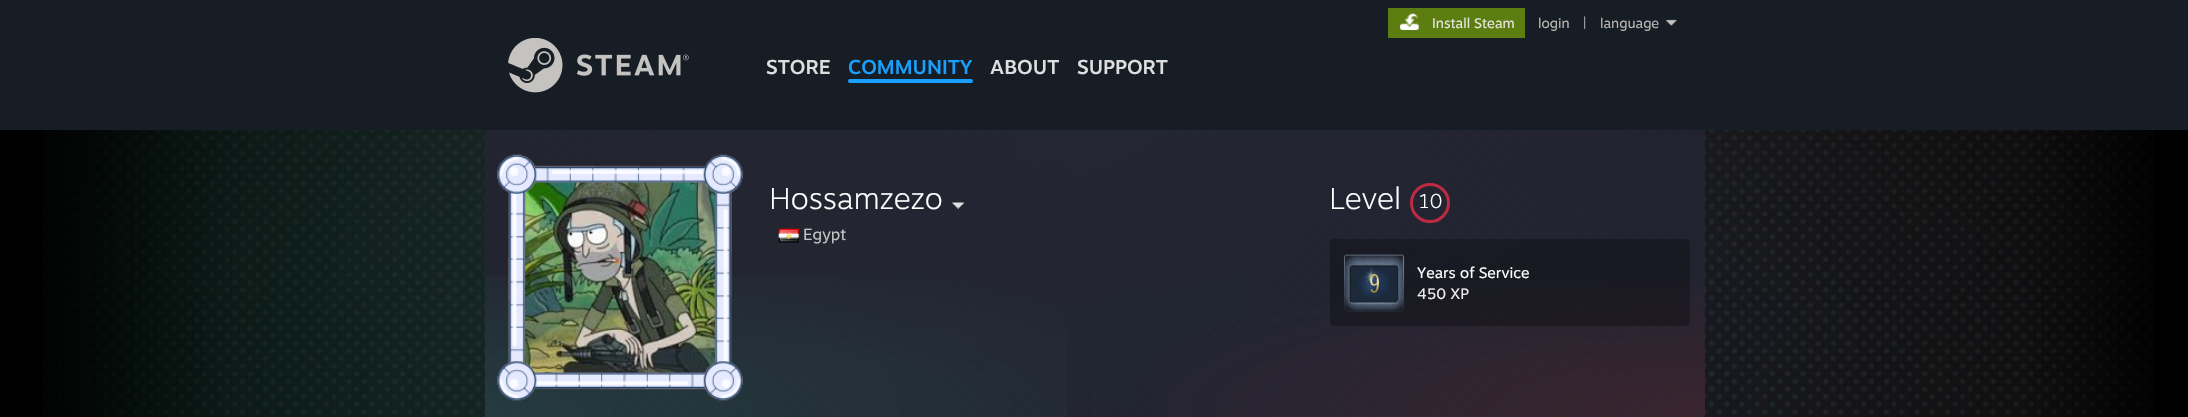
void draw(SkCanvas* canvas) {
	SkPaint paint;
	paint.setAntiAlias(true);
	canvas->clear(0xff171d25);
	paint.setColor(0xff5c7e10);
	canvas->drawRect(SkRect::MakeXYWH(1388, 8, 137, 30), paint);
	canvas->drawImageRect(SkImages::DeferredFromEncodedData(SkData::MakeFromFileName("img1.png")), SkRect::MakeXYWH(1400, 13, 19, 17), SkSamplingOptions());
	SkFont f1(fontMgr->matchFamilyStyle("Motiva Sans", SkFontStyle::Normal()), 13.75);
	f1.setSubpixel(true);
	paint.setColor(0xffe5e4dc);
	canvas->drawString("Install Steam", 1432, 28, f1, paint);
	paint.setColor(0xffb8b6b4);
	canvas->drawString("login", 1538, 28, f1, paint);
	canvas->drawString("|", 1583, 28, f1, paint);
	canvas->drawString("language", 1600, 28, f1, paint);
	canvas->drawImageRect(SkImages::DeferredFromEncodedData(SkData::MakeFromFileName("img2.png")), SkRect::MakeXYWH(1666, 19, 11, 7), SkSamplingOptions());
	canvas->drawImageRect(SkImages::DeferredFromEncodedData(SkData::MakeFromFileName("img3.png")), SkRect::MakeXYWH(508, 38, 181, 55), SkSamplingOptions());
	SkFont f2(fontMgr->matchFamilyStyle("Motiva Sans", SkFontStyle(500, SkFontStyle::kNormal_Width, SkFontStyle::kUpright_Slant)), 20);
	f2.setSubpixel(true);
	paint.setColor(0xffdcdedf);
	canvas->drawString("STORE", 766, 74, f2, paint);
	paint.setColor(0xff1a9fff);
	canvas->drawString("COMMUNITY", 848, 74, f2, paint);
	canvas->drawRoundRect(SkRect::MakeXYWH(848, 79, 125, 4), 2, 2, paint);
	paint.setColor(0xffdcdedf);
	canvas->drawString("ABOUT", 990, 74, f2, paint);
	canvas->drawString("SUPPORT", 1077, 74, f2, paint);
	paint.setColor(0xff000000);
	canvas->drawRect(SkRect::MakeXYWH(0, 130, 2188, 287), paint);
	canvas->drawImageRect(SkImages::DeferredFromEncodedData(SkData::MakeFromFileName("img4.png")), SkRect::MakeXYWH(43, 130, 2111, 287), SkSamplingOptions());
	paint.setColor(0xed222330);
	canvas->drawRect(SkRect::MakeXYWH(485, 130, 1220, 280), paint);
	{
		const SkColor colors[] = {0x1a32ffc1, 0x0032ffc1};
		const float stops[] = {0, 0.43};
		SkMatrix m = SkMatrix::Translate(485, 410).preScale(1725, 396);
		paint.setShader(SkGradientShader::MakeRadial({0, 0}, 1, colors, stops, 2, SkTileMode::kClamp, 0, &m));
		paint.setAlpha(255);
	}
	canvas->drawRect(SkRect::MakeXYWH(485, 276, 582, 134), paint);
	{
		const SkColor colors[] = {0x4d6d262c, 0x006d262c};
		const float stops[] = {0, 0.51};
		SkMatrix m = SkMatrix::Translate(1705, 410).preScale(1220, 280);
		paint.setShader(SkGradientShader::MakeRadial({0, 0}, 1, colors, stops, 2, SkTileMode::kClamp, 0, &m));
		paint.setAlpha(255);
	}
	canvas->drawRect(SkRect::MakeXYWH(1151, 282, 554, 128), paint);
	canvas->drawImageRect(SkImages::DeferredFromEncodedData(SkData::MakeFromFileName("img6.png")), SkRect::MakeXYWH(524, 181, 193, 193), SkSamplingOptions());
	canvas->drawImageRect(SkImages::DeferredFromEncodedData(SkData::MakeFromFileName("img5.png")), SkRect::MakeXYWH(497, 154, 246, 247), SkSamplingOptions());
	SkFont f3(fontMgr->matchFamilyStyle("Motiva Sans", SkFontStyle(100, SkFontStyle::kNormal_Width, SkFontStyle::kUpright_Slant)), 30);
	f3.setSubpixel(true);
	paint.setShader(nullptr);
	paint.setColor(0xffffffff);
	canvas->drawString("Hossamzezo", 769, 209, f3, paint);
	canvas->drawImageRect(SkImages::DeferredFromEncodedData(SkData::MakeFromFileName("img7.png")), SkRect::MakeXYWH(952, 202, 12, 7), SkSamplingOptions());
	canvas->drawImageRect(SkImages::DeferredFromEncodedData(SkData::MakeFromFileName("img8.png")), SkRect::MakeXYWH(778, 228, 21, 15), SkSamplingOptions());
	SkFont f4(fontMgr->matchFamilyStyle("Motiva Sans", SkFontStyle::Normal()), 16);
	f4.setSubpixel(true);
	paint.setColor(0xffc4c4c4);
	canvas->drawString("Egypt", 803, 240, f4, paint);
	paint.setColor(0xffffffff);
	canvas->drawString("Level", 1329, 209, f3, paint);
	paint.setStroke(true);
	paint.setStrokeWidth(3);
	paint.setColor(0xffc02942);
	canvas->drawCircle(1430, 203, 18.5, paint);
	SkFont f5(fontMgr->matchFamilyStyle("Motiva Sans", SkFontStyle(100, SkFontStyle::kNormal_Width, SkFontStyle::kUpright_Slant)), 20);
	f5.setSubpixel(true);
	paint.setStroke(false);
	paint.setColor(0xffffffff);
	canvas->drawString("10", 1419, 208, f5, paint);
	paint.setColor(0x4d000000);
	canvas->drawRoundRect(SkRect::MakeXYWH(1330, 239, 360, 87), 4, 4, paint);
	canvas->drawImageRect(SkImages::DeferredFromEncodedData(SkData::MakeFromFileName("img9.png")), SkRect::MakeXYWH(1344, 254, 61, 58), SkSamplingOptions());
	SkFont f6(fontMgr->matchFamilyStyle("Motiva Sans", SkFontStyle::Normal()), 15);
	f6.setSubpixel(true);
	paint.setColor(0xffffffff);
	canvas->drawString("Years of Service", 1417, 278, f6, paint);
	paint.setColor(0xffebebeb);
	canvas->drawString("450 XP", 1417, 299, f6, paint);
	paint.setColor(0xed222330);
	canvas->drawRect(SkRect::MakeXYWH(485, 410, 1220, 7), paint);
	{
		const SkColor colors[] = {0x1a32ffc1, 0x0032ffc1};
		const float stops[] = {0, 0.43};
		SkMatrix m = SkMatrix::Translate(485, 410).preScale(1725, 1720);
		paint.setShader(SkGradientShader::MakeRadial({0, 0}, 1, colors, stops, 2, SkTileMode::kClamp, 0, &m));
		paint.setAlpha(255);
	}
	canvas->drawRect(SkRect::MakeXYWH(485, 410, 582, 7), paint);
	{
		const SkColor colors[] = {0x4d6d262c, 0x006d262c};
		const float stops[] = {0, 0.51};
		SkMatrix m = SkMatrix::Translate(1705, 410).preScale(1220, 1216);
		paint.setShader(SkGradientShader::MakeRadial({0, 0}, 1, colors, stops, 2, SkTileMode::kClamp, 0, &m));
		paint.setAlpha(255);
	}
	canvas->drawRect(SkRect::MakeXYWH(1151, 410, 554, 7), paint);
}
